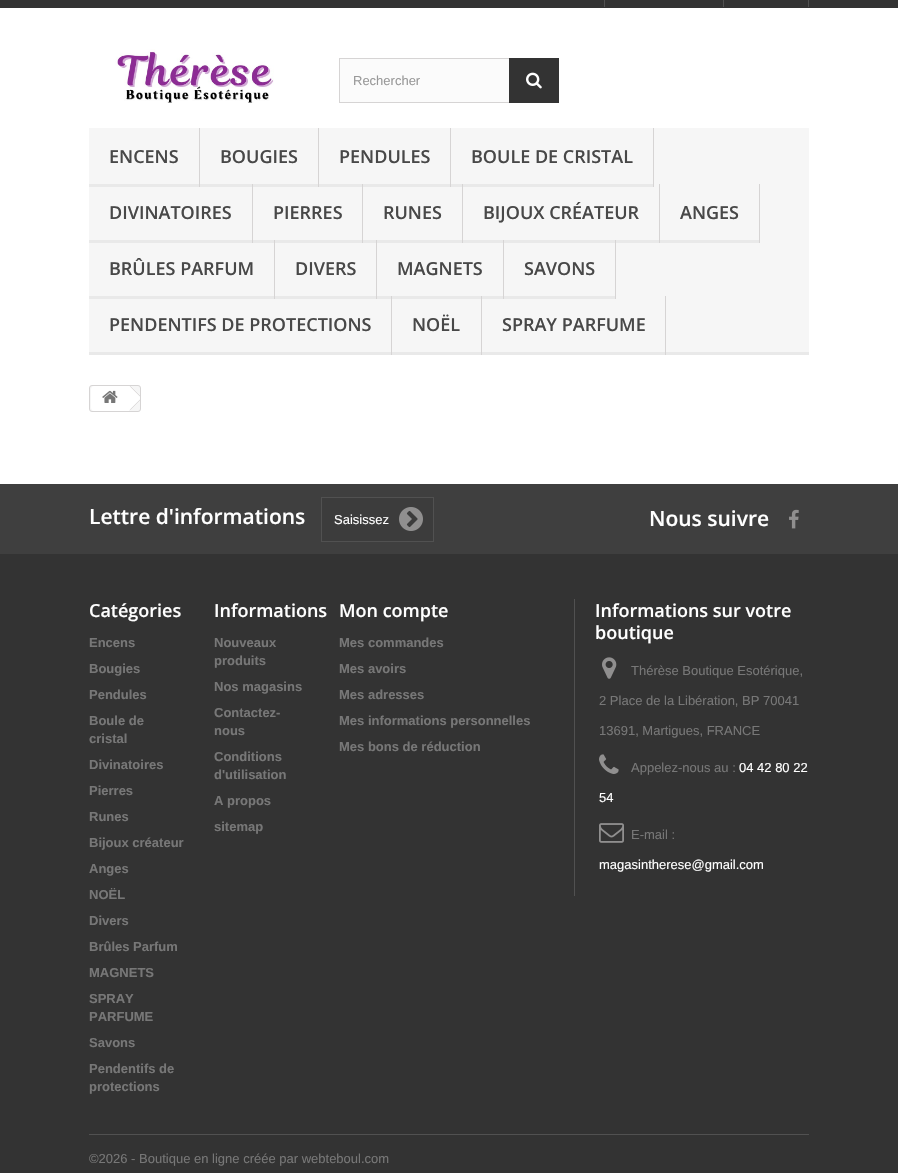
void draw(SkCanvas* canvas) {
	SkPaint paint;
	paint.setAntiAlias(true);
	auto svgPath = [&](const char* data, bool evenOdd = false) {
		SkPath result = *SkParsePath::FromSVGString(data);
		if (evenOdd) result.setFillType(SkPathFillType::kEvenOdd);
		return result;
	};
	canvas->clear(0xffffffff);
	paint.setColor(0xff333333);
	canvas->drawRect(SkRect::MakeXYWH(0, 0, 898, 8), paint);
	paint.setColor(0xff515151);
	canvas->drawRect(SkRect::MakeXYWH(604, 0, 1, 7), paint);
	canvas->drawRect(SkRect::MakeXYWH(808, 0, 1, 7), paint);
	canvas->drawRect(SkRect::MakeXYWH(723, 0, 1, 7), paint);
	canvas->drawImageRect(SkImages::DeferredFromEncodedData(SkData::MakeFromFileName("img1.png")), SkRect::MakeXYWH(115, 49, 159, 54), SkSamplingOptions());
	paint.setColor(0xfffbfbfb);
	canvas->drawRect(SkRect::MakeXYWH(340, 59, 169, 43), paint);
	paint.setStroke(true);
	paint.setStrokeWidth(1);
	paint.setColor(0xffd6d4d4);
	canvas->drawRect(SkRect::MakeXYWH(339.5, 58.5, 219, 44), paint);
	SkFont f1(fontMgr->matchFamilyStyle("Liberation Sans", SkFontStyle::Normal()), 13);
	f1.setSubpixel(true);
	paint.setStroke(false);
	paint.setColor(0xff999999);
	canvas->drawString("Rechercher", 353, 85, f1, paint);
	paint.setColor(0xff333333);
	canvas->drawRect(SkRect::MakeXYWH(509, 58, 50, 45), paint);
	canvas->drawImageRect(SkImages::DeferredFromEncodedData(SkData::MakeFromFileName("img2.png")), SkRect::MakeXYWH(526, 72, 16, 17), SkSamplingOptions());
	paint.setColor(0xfff6f6f6);
	canvas->drawRect(SkRect::MakeXYWH(89, 128, 720, 224), paint);
	paint.setColor(0xffe9e9e9);
	canvas->drawRect(SkRect::MakeXYWH(89, 352, 720, 3), paint);
	paint.setColor(0xffd6d4d4);
	canvas->drawRect(SkRect::MakeXYWH(199, 128, 1, 59), paint);
	paint.setColor(0xffe9e9e9);
	canvas->drawRect(SkRect::MakeXYWH(89, 184, 110, 3), paint);
	SkFont f2(fontMgr->matchFamilyStyle("Open Sans", SkFontStyle(600, SkFontStyle::kNormal_Width, SkFontStyle::kUpright_Slant)), 18);
	f2.setSubpixel(true);
	paint.setColor(0xff484848);
	canvas->drawString("ENCENS", 109, 163, f2, paint);
	paint.setColor(0xffd6d4d4);
	canvas->drawRect(SkRect::MakeXYWH(318, 128, 1, 59), paint);
	paint.setColor(0xffe9e9e9);
	canvas->drawRect(SkRect::MakeXYWH(200, 184, 118, 3), paint);
	paint.setColor(0xff484848);
	canvas->drawString("BOUGIES", 220, 163, f2, paint);
	paint.setColor(0xffd6d4d4);
	canvas->drawRect(SkRect::MakeXYWH(450, 128, 1, 59), paint);
	paint.setColor(0xffe9e9e9);
	canvas->drawRect(SkRect::MakeXYWH(319, 184, 131, 3), paint);
	paint.setColor(0xff484848);
	canvas->drawString("PENDULES", 339, 163, f2, paint);
	paint.setColor(0xffd6d4d4);
	canvas->drawRect(SkRect::MakeXYWH(653, 128, 1, 59), paint);
	paint.setColor(0xffe9e9e9);
	canvas->drawRect(SkRect::MakeXYWH(451, 184, 202, 3), paint);
	paint.setColor(0xff484848);
	canvas->drawString("BOULE DE CRISTAL", 471, 163, f2, paint);
	paint.setColor(0xffd6d4d4);
	canvas->drawRect(SkRect::MakeXYWH(252, 184, 1, 59), paint);
	paint.setColor(0xffe9e9e9);
	canvas->drawRect(SkRect::MakeXYWH(89, 240, 163, 3), paint);
	paint.setColor(0xff484848);
	canvas->drawString("DIVINATOIRES", 109, 219, f2, paint);
	paint.setColor(0xffd6d4d4);
	canvas->drawRect(SkRect::MakeXYWH(362, 184, 1, 59), paint);
	paint.setColor(0xffe9e9e9);
	canvas->drawRect(SkRect::MakeXYWH(253, 240, 109, 3), paint);
	paint.setColor(0xff484848);
	canvas->drawString("PIERRES", 273, 219, f2, paint);
	paint.setColor(0xffd6d4d4);
	canvas->drawRect(SkRect::MakeXYWH(462, 184, 1, 59), paint);
	paint.setColor(0xffe9e9e9);
	canvas->drawRect(SkRect::MakeXYWH(363, 240, 99, 3), paint);
	paint.setColor(0xff484848);
	canvas->drawString("RUNES", 383, 219, f2, paint);
	paint.setColor(0xffd6d4d4);
	canvas->drawRect(SkRect::MakeXYWH(659, 184, 1, 59), paint);
	paint.setColor(0xffe9e9e9);
	canvas->drawRect(SkRect::MakeXYWH(463, 240, 196, 3), paint);
	paint.setColor(0xff484848);
	canvas->drawString("BIJOUX CRÉATEUR", 483, 219, f2, paint);
	paint.setColor(0xffd6d4d4);
	canvas->drawRect(SkRect::MakeXYWH(759, 184, 1, 59), paint);
	paint.setColor(0xffe9e9e9);
	canvas->drawRect(SkRect::MakeXYWH(660, 240, 99, 3), paint);
	paint.setColor(0xff484848);
	canvas->drawString("ANGES", 680, 219, f2, paint);
	paint.setColor(0xffd6d4d4);
	canvas->drawRect(SkRect::MakeXYWH(274, 240, 1, 59), paint);
	paint.setColor(0xffe9e9e9);
	canvas->drawRect(SkRect::MakeXYWH(89, 296, 185, 3), paint);
	paint.setColor(0xff484848);
	canvas->drawString("BRÛLES PARFUM", 109, 275, f2, paint);
	paint.setColor(0xffd6d4d4);
	canvas->drawRect(SkRect::MakeXYWH(376, 240, 1, 59), paint);
	paint.setColor(0xffe9e9e9);
	canvas->drawRect(SkRect::MakeXYWH(275, 296, 101, 3), paint);
	paint.setColor(0xff484848);
	canvas->drawString("DIVERS", 295, 275, f2, paint);
	paint.setColor(0xffd6d4d4);
	canvas->drawRect(SkRect::MakeXYWH(503, 240, 1, 59), paint);
	paint.setColor(0xffe9e9e9);
	canvas->drawRect(SkRect::MakeXYWH(377, 296, 126, 3), paint);
	paint.setColor(0xff484848);
	canvas->drawString("MAGNETS", 397, 275, f2, paint);
	paint.setColor(0xffd6d4d4);
	canvas->drawRect(SkRect::MakeXYWH(615, 240, 1, 59), paint);
	paint.setColor(0xffe9e9e9);
	canvas->drawRect(SkRect::MakeXYWH(504, 296, 111, 3), paint);
	paint.setColor(0xff484848);
	canvas->drawString("SAVONS", 524, 275, f2, paint);
	paint.setColor(0xffd6d4d4);
	canvas->drawRect(SkRect::MakeXYWH(391, 296, 1, 59), paint);
	paint.setColor(0xff484848);
	canvas->drawString("PENDENTIFS DE PROTECTIONS", 109, 331, f2, paint);
	paint.setColor(0xffd6d4d4);
	canvas->drawRect(SkRect::MakeXYWH(481, 296, 1, 59), paint);
	paint.setColor(0xff484848);
	canvas->drawString("NOËL", 412, 331, f2, paint);
	paint.setColor(0xffd6d4d4);
	canvas->drawRect(SkRect::MakeXYWH(665, 296, 1, 59), paint);
	paint.setColor(0xff484848);
	canvas->drawString("SPRAY PARFUME", 502, 331, f2, paint);
	paint.setColor(0xfff6f6f6);
	canvas->drawRoundRect(SkRect::MakeXYWH(89.5, 385.5, 51, 26), 2.5, 2.5, paint);
	paint.setStroke(true);
	paint.setColor(0xffd6d4d4);
	canvas->drawRoundRect(SkRect::MakeXYWH(89.5, 385.5, 51, 26), 2.5, 2.5, paint);
	paint.setStroke(false);
	paint.setColor(0xffffffff);
	canvas->drawPath(svgPath("M94 386H129V411H94C92.5 411 91 409.5 91 408V389C91 387.5 92.5 386 94 386Z"), paint);
	canvas->drawImageRect(SkImages::DeferredFromEncodedData(SkData::MakeFromFileName("img3.png")), SkRect::MakeXYWH(102, 390, 16, 13), SkSamplingOptions());
	canvas->drawPath(svgPath("M131.5 386.5L140 395V401L131.5 409.5C130.5 410 129.5 410 128.5 409.5L118.5 399.5C118 398.5 118 397.5 118.5 396.5L128.5 386.5C129.5 386 130.5 386 131.5 386.5Z"), paint);
	paint.setColor(0xffd6d4d4);
	canvas->drawPath(svgPath("M130.5 386L140 395.5V396.5L130 386.5ZM140 399.5V400.5L130.5 410L130 409.5Z"), paint);
	paint.setColor(0xff333333);
	canvas->drawRect(SkRect::MakeXYWH(0, 554, 898, 619), paint);
	paint.setColor(0xff3f3f3f);
	canvas->drawRect(SkRect::MakeXYWH(0, 484, 898, 70), paint);
	SkFont f3(fontMgr->matchFamilyStyle("Open Sans", SkFontStyle(600, SkFontStyle::kNormal_Width, SkFontStyle::kUpright_Slant)), 21);
	f3.setSubpixel(true);
	paint.setColor(0xffffffff);
	canvas->drawString("Lettre d'informations", 89, 524, f3, paint);
	paint.setColor(0xff3c3c3c);
	canvas->drawRect(SkRect::MakeXYWH(321.5, 497.5, 112, 44), paint);
	paint.setStroke(true);
	paint.setColor(0xff515151);
	canvas->drawRect(SkRect::MakeXYWH(321.5, 497.5, 112, 44), paint);
	paint.setStroke(false);
	paint.setColor(0xffffffff);
	canvas->drawString("Saisissez", 334, 524, f1, paint);
	canvas->drawImageRect(SkImages::DeferredFromEncodedData(SkData::MakeFromFileName("img4.png")), SkRect::MakeXYWH(399, 507, 24, 24), SkSamplingOptions());
	canvas->drawString("Nous suivre", 649, 526, f3, paint);
	canvas->drawImageRect(SkImages::DeferredFromEncodedData(SkData::MakeFromFileName("img5.png")), SkRect::MakeXYWH(789, 509, 10, 20), SkSamplingOptions());
	canvas->drawString("Catégories", 89, 617, f2, paint);
	SkFont f4(fontMgr->matchFamilyStyle("Liberation Sans", SkFontStyle::Bold()), 13);
	f4.setSubpixel(true);
	paint.setColor(0xff777777);
	canvas->drawString("Encens", 89, 647, f4, paint);
	canvas->drawString("Bougies", 89, 673, f4, paint);
	canvas->drawString("Pendules", 89, 699, f4, paint);
	canvas->drawString("Boule de", 89, 725, f4, paint);
	canvas->drawString("cristal", 89, 743, f4, paint);
	canvas->drawString("Divinatoires", 89, 769, f4, paint);
	canvas->drawString("Pierres", 89, 795, f4, paint);
	canvas->drawString("Runes", 89, 821, f4, paint);
	canvas->drawString("Bijoux créateur", 89, 847, f4, paint);
	canvas->drawString("Anges", 89, 873, f4, paint);
	canvas->drawString("NOËL", 89, 899, f4, paint);
	canvas->drawString("Divers", 89, 925, f4, paint);
	canvas->drawString("Brûles Parfum", 89, 951, f4, paint);
	canvas->drawString("MAGNETS", 89, 977, f4, paint);
	canvas->drawString("SPRAY", 89, 1003, f4, paint);
	canvas->drawString("PARFUME", 89, 1021, f4, paint);
	canvas->drawString("Savons", 89, 1047, f4, paint);
	canvas->drawString("Pendentifs de", 89, 1073, f4, paint);
	canvas->drawString("protections", 89, 1091, f4, paint);
	paint.setColor(0xffffffff);
	canvas->drawString("Informations", 214, 617, f2, paint);
	paint.setColor(0xff777777);
	canvas->drawString("Nouveaux", 214, 647, f4, paint);
	canvas->drawString("produits", 214, 665, f4, paint);
	canvas->drawString("Nos magasins", 214, 691, f4, paint);
	canvas->drawString("Contactez-", 214, 717, f4, paint);
	canvas->drawString("nous", 214, 735, f4, paint);
	canvas->drawString("Conditions", 214, 761, f4, paint);
	canvas->drawString("d'utilisation", 214, 779, f4, paint);
	canvas->drawString("A propos", 214, 805, f4, paint);
	canvas->drawString("sitemap", 214, 831, f4, paint);
	paint.setColor(0xffffffff);
	canvas->drawString("Mon compte", 339, 617, f2, paint);
	paint.setColor(0xff777777);
	canvas->drawString("Mes commandes", 339, 647, f4, paint);
	canvas->drawString("Mes avoirs", 339, 673, f4, paint);
	canvas->drawString("Mes adresses", 339, 699, f4, paint);
	canvas->drawString("Mes informations personnelles", 339, 725, f4, paint);
	canvas->drawString("Mes bons de réduction", 339, 751, f4, paint);
	paint.setColor(0xff515151);
	canvas->drawRect(SkRect::MakeXYWH(574, 599, 1, 297), paint);
	paint.setColor(0xffffffff);
	canvas->drawString("Informations sur votre", 595, 617, f2, paint);
	canvas->drawString("boutique", 595, 639, f2, paint);
	canvas->drawImageRect(SkImages::DeferredFromEncodedData(SkData::MakeFromFileName("img6.png")), SkRect::MakeXYWH(602, 657, 15, 22), SkSamplingOptions());
	paint.setColor(0xff777777);
	canvas->drawString("Thérèse Boutique Esotérique,", 631, 675, f1, paint);
	canvas->drawString("2 Place de la Libération, BP 70041", 599, 705, f1, paint);
	canvas->drawString("13691, Martigues, FRANCE", 599, 735, f1, paint);
	canvas->drawImageRect(SkImages::DeferredFromEncodedData(SkData::MakeFromFileName("img7.png")), SkRect::MakeXYWH(599, 754, 20, 20), SkSamplingOptions());
	canvas->drawString("Appelez-nous au :", 631, 772, f1, paint);
	paint.setColor(0xffffffff);
	canvas->drawString("04 42 80 22", 739, 772, f1, paint);
	canvas->drawString("54", 599, 802, f1, paint);
	canvas->drawImageRect(SkImages::DeferredFromEncodedData(SkData::MakeFromFileName("img8.png")), SkRect::MakeXYWH(599, 823, 25, 20), SkSamplingOptions());
	paint.setColor(0xff777777);
	canvas->drawString("E-mail :", 631, 839, f1, paint);
	paint.setColor(0xffffffff);
	canvas->drawString("magasintherese@gmail.com", 599, 869, f1, paint);
	paint.setColor(0xff515151);
	canvas->drawRect(SkRect::MakeXYWH(89, 1134, 720, 1), paint);
	paint.setColor(0xff777777);
	canvas->drawString("©2026 - Boutique en ligne créée par webteboul.com", 89, 1163, f1, paint);
}
